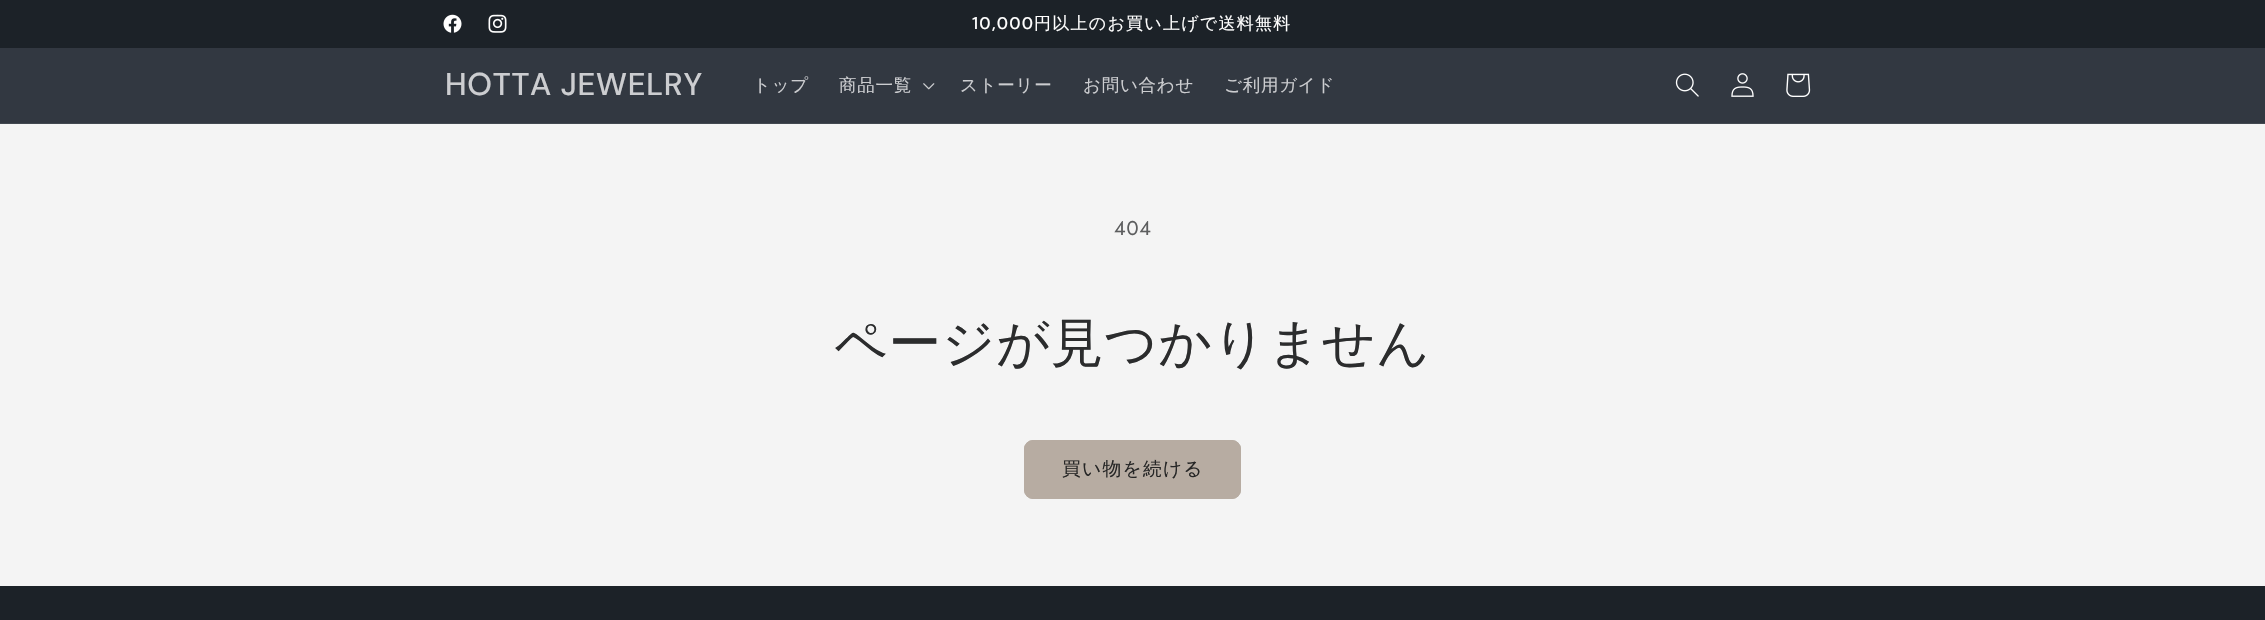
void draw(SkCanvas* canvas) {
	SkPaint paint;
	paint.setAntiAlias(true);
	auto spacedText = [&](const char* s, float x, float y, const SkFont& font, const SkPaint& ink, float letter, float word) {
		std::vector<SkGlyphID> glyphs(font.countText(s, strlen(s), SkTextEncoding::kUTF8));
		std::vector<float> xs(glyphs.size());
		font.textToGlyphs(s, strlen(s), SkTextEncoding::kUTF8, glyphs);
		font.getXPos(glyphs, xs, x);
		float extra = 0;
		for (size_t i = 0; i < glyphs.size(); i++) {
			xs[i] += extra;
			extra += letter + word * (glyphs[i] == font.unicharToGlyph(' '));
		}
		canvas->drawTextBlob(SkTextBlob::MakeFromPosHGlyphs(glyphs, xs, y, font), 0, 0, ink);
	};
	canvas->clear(0xfff4f4f4);
	paint.setColor(0xff1c2228);
	canvas->drawRect(SkRect::MakeXYWH(0, 0, 2265, 48), paint);
	canvas->drawImageRect(SkImages::DeferredFromEncodedData(SkData::MakeFromFileName("img1.png")), SkRect::MakeXYWH(443, 14, 19, 19), SkSamplingOptions());
	canvas->drawImageRect(SkImages::DeferredFromEncodedData(SkData::MakeFromFileName("img2.png")), SkRect::MakeXYWH(488, 14, 19, 19), SkSamplingOptions());
	SkFont f1(fontMgr->matchFamilyStyle("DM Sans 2", SkFontStyle(500, SkFontStyle::kNormal_Width, SkFontStyle::kUpright_Slant)), 17);
	f1.setSubpixel(true);
	paint.setColor(0xffffffff);
	spacedText("10,000", 972, 29, f1, paint, 1.25, 0);
	SkFont f2(fontMgr->matchFamilyStyle("WenQuanYi Zen Hei", SkFontStyle(500, SkFontStyle::kNormal_Width, SkFontStyle::kUpright_Slant)), 17);
	f2.setSubpixel(true);
	spacedText("円以上のお買い上げで送料無料", 1034, 29, f2, paint, 1.25, 0);
	paint.setColor(0xff323841);
	canvas->drawRect(SkRect::MakeXYWH(0, 48, 2265, 75), paint);
	paint.setColor(0xff424850);
	canvas->drawRect(SkRect::MakeXYWH(0, 123, 2265, 1), paint);
	SkFont f3(fontMgr->matchFamilyStyle("DM Sans", SkFontStyle(500, SkFontStyle::kNormal_Width, SkFontStyle::kUpright_Slant)), 31.5);
	f3.setSubpixel(true);
	paint.setColor(0xffcccdd0);
	spacedText("HOTTA JEWELRY", 445, 95, f3, paint, 0.75, 0);
	SkFont f4(fontMgr->matchFamilyStyle("WenQuanYi Zen Hei", SkFontStyle(500, SkFontStyle::kNormal_Width, SkFontStyle::kUpright_Slant)), 17.5);
	f4.setSubpixel(true);
	spacedText("トップ", 753, 91, f4, paint, 0.75, 0);
	spacedText("商品一覧", 839, 91, f4, paint, 0.75, 0);
	canvas->drawImageRect(SkImages::DeferredFromEncodedData(SkData::MakeFromFileName("img3.png")), SkRect::MakeXYWH(923, 83, 12, 7), SkSamplingOptions());
	spacedText("ストーリー", 960, 91, f4, paint, 0.75, 0);
	spacedText("お問い合わせ", 1083, 91, f4, paint, 0.75, 0);
	spacedText("ご利用ガイド", 1224, 91, f4, paint, 0.75, 0);
	canvas->drawImageRect(SkImages::DeferredFromEncodedData(SkData::MakeFromFileName("img4.png")), SkRect::MakeXYWH(1675, 73, 24, 24), SkSamplingOptions());
	canvas->drawImageRect(SkImages::DeferredFromEncodedData(SkData::MakeFromFileName("img5.png")), SkRect::MakeXYWH(1731, 73, 23, 24), SkSamplingOptions());
	canvas->drawImageRect(SkImages::DeferredFromEncodedData(SkData::MakeFromFileName("img6.png")), SkRect::MakeXYWH(1786, 73, 25, 24), SkSamplingOptions());
	SkFont f5(fontMgr->matchFamilyStyle("Jost", SkFontStyle::Normal()), 20);
	f5.setSubpixel(true);
	paint.setColor(0xff5d5e5f);
	spacedText("404", 1114, 235, f5, paint, 0.75, 0);
	SkFont f6(fontMgr->matchFamilyStyle("WenQuanYi Zen Hei", SkFontStyle(500, SkFontStyle::kNormal_Width, SkFontStyle::kUpright_Slant)), 52.5);
	f6.setSubpixel(true);
	paint.setColor(0xff2b2c2d);
	spacedText("ページが見つかりません", 834, 361, f6, paint, 0.75, 0);
	paint.setColor(0xffb7aca2);
	canvas->drawRoundRect(SkRect::MakeXYWH(1024, 440, 217, 59), 9, 9, paint);
	paint.setStroke(true);
	paint.setStrokeWidth(1);
	canvas->drawRoundRect(SkRect::MakeXYWH(1024.5, 440.5, 216, 58), 8.5, 8.5, paint);
	SkFont f7(fontMgr->matchFamilyStyle("WenQuanYi Zen Hei", SkFontStyle(500, SkFontStyle::kNormal_Width, SkFontStyle::kUpright_Slant)), 18.75);
	f7.setSubpixel(true);
	paint.setStroke(false);
	paint.setColor(0xff262626);
	spacedText("買い物を続ける", 1062, 475, f7, paint, 1.25, 0);
	paint.setColor(0xff1c2228);
	canvas->drawRect(SkRect::MakeXYWH(0, 586, 2265, 34), paint);
}
